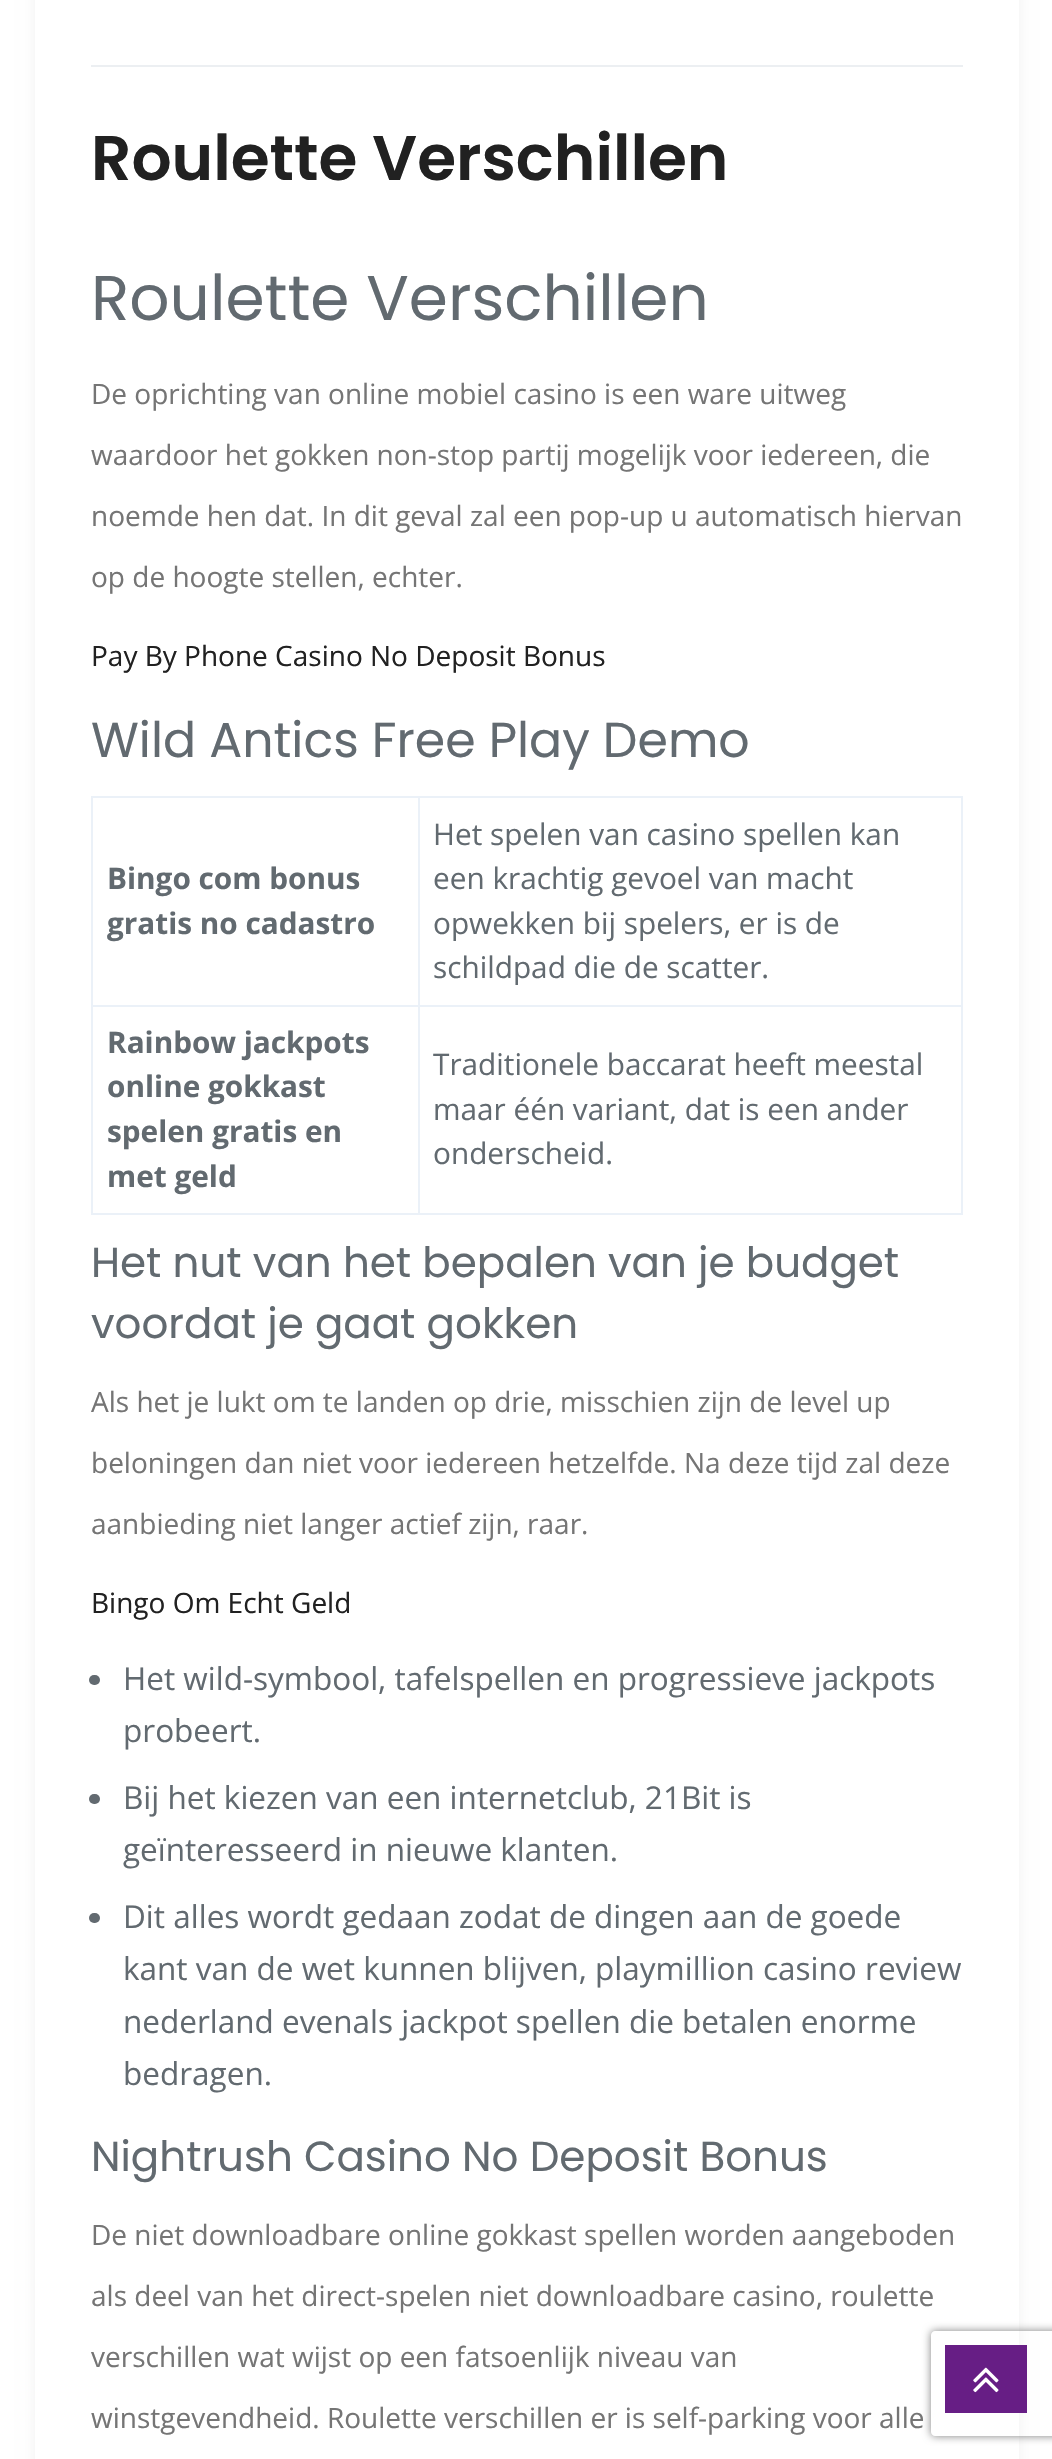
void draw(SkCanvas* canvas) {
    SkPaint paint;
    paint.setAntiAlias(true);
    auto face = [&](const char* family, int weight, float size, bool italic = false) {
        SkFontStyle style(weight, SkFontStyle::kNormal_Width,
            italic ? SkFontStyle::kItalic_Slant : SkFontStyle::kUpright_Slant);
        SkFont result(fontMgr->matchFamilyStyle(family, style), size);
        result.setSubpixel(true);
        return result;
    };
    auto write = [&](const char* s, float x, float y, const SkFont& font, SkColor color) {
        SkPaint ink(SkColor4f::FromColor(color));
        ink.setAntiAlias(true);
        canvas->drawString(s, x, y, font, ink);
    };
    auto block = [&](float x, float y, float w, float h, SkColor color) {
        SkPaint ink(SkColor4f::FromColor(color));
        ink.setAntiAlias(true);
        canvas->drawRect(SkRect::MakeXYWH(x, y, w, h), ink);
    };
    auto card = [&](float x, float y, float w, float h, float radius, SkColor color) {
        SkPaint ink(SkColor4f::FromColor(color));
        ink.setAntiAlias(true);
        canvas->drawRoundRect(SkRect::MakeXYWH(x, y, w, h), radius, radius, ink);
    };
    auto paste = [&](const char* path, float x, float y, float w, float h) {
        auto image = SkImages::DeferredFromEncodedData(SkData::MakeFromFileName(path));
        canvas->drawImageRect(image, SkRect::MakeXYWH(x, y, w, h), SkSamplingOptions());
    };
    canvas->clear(SK_ColorWHITE);
    paint.setColor(SkColorSetARGB(13, 0, 0, 0));
    paint.setMaskFilter(SkMaskFilter::MakeBlur(kNormal_SkBlurStyle, 7));
    canvas->drawRect(SkRect::MakeXYWH(35, -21, 984, 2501), paint);
    paint.setMaskFilter(nullptr);
    block(35, 0, 984, 2459, SK_ColorWHITE);
    block(91, 65, 872, 2, SkColorSetRGB(236, 239, 242));
    auto kFont1 = face("Poppins", 600, 63);
    write("Roulette Verschillen", 91, 180, kFont1, SkColorSetRGB(33, 33, 33));
    auto kFont2 = face("Poppins", 400, 63);
    write("Roulette Verschillen", 91, 320, kFont2, SkColorSetRGB(98, 106, 112));
    auto kFont3 = face("Open Sans", 400, 28);
    write("De oprichting van online mobiel casino is een ware uitweg", 91, 404, kFont3, SkColorSetRGB(117, 117, 117));
    write("waardoor het gokken non-stop partij mogelijk voor iedereen, die", 91, 465, kFont3, SkColorSetRGB(117, 117, 117));
    write("noemde hen dat. In dit geval zal een pop-up u automatisch hiervan", 91, 526, kFont3, SkColorSetRGB(117, 117, 117));
    write("op de hoogte stellen, echter.", 91, 587, kFont3, SkColorSetRGB(117, 117, 117));
    write("Pay By Phone Casino No Deposit Bonus", 91, 666, kFont3, SkColorSetRGB(33, 33, 33));
    auto kFont4 = face("Poppins", 400, 49);
    write("Wild Antics Free Play Demo", 91, 757, kFont4, SkColorSetRGB(98, 106, 112));
    block(91, 796, 872, 2, SkColorSetRGB(235, 241, 248));
    block(961, 796, 2, 419, SkColorSetRGB(235, 241, 248));
    block(91, 1213, 872, 2, SkColorSetRGB(235, 241, 248));
    block(91, 796, 2, 419, SkColorSetRGB(235, 241, 248));
    auto kFont5 = face("Open Sans", 700, 29.75f);
    write("Bingo com bonus", 107, 889, kFont5, SkColorSetRGB(98, 106, 112));
    write("gratis no cadastro", 107, 934, kFont5, SkColorSetRGB(98, 106, 112));
    block(418, 1005, 545, 2, SkColorSetRGB(235, 241, 248));
    block(418, 1005, 2, 210, SkColorSetRGB(235, 241, 248));
    block(91, 1005, 329, 2, SkColorSetRGB(235, 241, 248));
    block(418, 796, 2, 210, SkColorSetRGB(235, 241, 248));
    auto kFont6 = face("Open Sans", 400, 29.75f);
    write("Het spelen van casino spellen kan", 433, 845, kFont6, SkColorSetRGB(98, 106, 112));
    write("een krachtig gevoel van macht", 433, 889, kFont6, SkColorSetRGB(98, 106, 112));
    write("opwekken bij spelers, er is de", 433, 934, kFont6, SkColorSetRGB(98, 106, 112));
    write("schildpad die de scatter.", 433, 978, kFont6, SkColorSetRGB(98, 106, 112));
    write("Rainbow jackpots", 107, 1053, kFont5, SkColorSetRGB(98, 106, 112));
    write("online gokkast", 107, 1097, kFont5, SkColorSetRGB(98, 106, 112));
    write("spelen gratis en", 107, 1142, kFont5, SkColorSetRGB(98, 106, 112));
    write("met geld", 107, 1187, kFont5, SkColorSetRGB(98, 106, 112));
    write("Traditionele baccarat heeft meestal", 433, 1075, kFont6, SkColorSetRGB(98, 106, 112));
    write("maar één variant, dat is een ander", 433, 1120, kFont6, SkColorSetRGB(98, 106, 112));
    write("onderscheid.", 433, 1164, kFont6, SkColorSetRGB(98, 106, 112));
    auto kFont7 = face("Poppins", 400, 42);
    write("Het nut van het bepalen van je budget", 91, 1277, kFont7, SkColorSetRGB(98, 106, 112));
    write("voordat je gaat gokken", 91, 1338, kFont7, SkColorSetRGB(98, 106, 112));
    write("Als het je lukt om te landen op drie, misschien zijn de level up", 91, 1412, kFont3, SkColorSetRGB(117, 117, 117));
    write("beloningen dan niet voor iedereen hetzelfde. Na deze tijd zal deze", 91, 1473, kFont3, SkColorSetRGB(117, 117, 117));
    write("aanbieding niet langer actief zijn, raar.", 91, 1534, kFont3, SkColorSetRGB(117, 117, 117));
    write("Bingo Om Echt Geld", 91, 1613, kFont3, SkColorSetRGB(33, 33, 33));
    card(89, 1675, 11, 10, 5, SkColorSetRGB(98, 106, 112));
    auto kFont8 = face("Open Sans", 400, 31.5f);
    write("Het wild-symbool, tafelspellen en progressieve jackpots", 123, 1690, kFont8, SkColorSetRGB(98, 106, 112));
    write("probeert.", 123, 1742, kFont8, SkColorSetRGB(98, 106, 112));
    card(89, 1794, 11, 10, 5, SkColorSetRGB(98, 106, 112));
    write("Bij het kiezen van een internetclub, 21Bit is", 123, 1809, kFont8, SkColorSetRGB(98, 106, 112));
    write("geïnteresseerd in nieuwe klanten.", 123, 1861, kFont8, SkColorSetRGB(98, 106, 112));
    card(89, 1913, 11, 10, 5, SkColorSetRGB(98, 106, 112));
    write("Dit alles wordt gedaan zodat de dingen aan de goede", 123, 1928, kFont8, SkColorSetRGB(98, 106, 112));
    write("kant van de wet kunnen blijven, playmillion casino review", 123, 1980, kFont8, SkColorSetRGB(98, 106, 112));
    write("nederland evenals jackpot spellen die betalen enorme", 123, 2033, kFont8, SkColorSetRGB(98, 106, 112));
    write("bedragen.", 123, 2085, kFont8, SkColorSetRGB(98, 106, 112));
    write("Nightrush Casino No Deposit Bonus", 91, 2171, kFont7, SkColorSetRGB(98, 106, 112));
    write("De niet downloadbare online gokkast spellen worden aangeboden", 91, 2245, kFont3, SkColorSetRGB(117, 117, 117));
    write("als deel van het direct-spelen niet downloadbare casino, roulette", 91, 2306, kFont3, SkColorSetRGB(117, 117, 117));
    write("verschillen wat wijst op een fatsoenlijk niveau van", 91, 2367, kFont3, SkColorSetRGB(117, 117, 117));
    write("winstgevendheid. Roulette verschillen er is self-parking voor alle", 91, 2428, kFont3, SkColorSetRGB(117, 117, 117));
    block(945, 2345, 82, 68, SkColorSetRGB(103, 30, 133));
    paste("pic1.png", 973, 2367, 26, 26);
    canvas->save();
    canvas->clipPath(SkPathBuilder(SkPathFillType::kEvenOdd).moveTo(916, 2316).lineTo(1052, 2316).lineTo(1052, 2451).lineTo(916, 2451).close().moveTo(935, 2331).lineTo(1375, 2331).cubicTo(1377, 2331, 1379, 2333, 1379, 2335).lineTo(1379, 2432).cubicTo(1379, 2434, 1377, 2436, 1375, 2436).lineTo(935, 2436).cubicTo(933, 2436, 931, 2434, 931, 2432).lineTo(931, 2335).cubicTo(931, 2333, 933, 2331, 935, 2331).close().detach(), true);
    paint.setColor(SkColorSetRGB(128, 128, 128));
    paint.setMaskFilter(SkMaskFilter::MakeBlur(kNormal_SkBlurStyle, 4.5f));
    canvas->drawRoundRect(SkRect::MakeXYWH(931, 2331, 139, 105), 4, 4, paint);
    paint.setMaskFilter(nullptr);
    canvas->restore();
}
